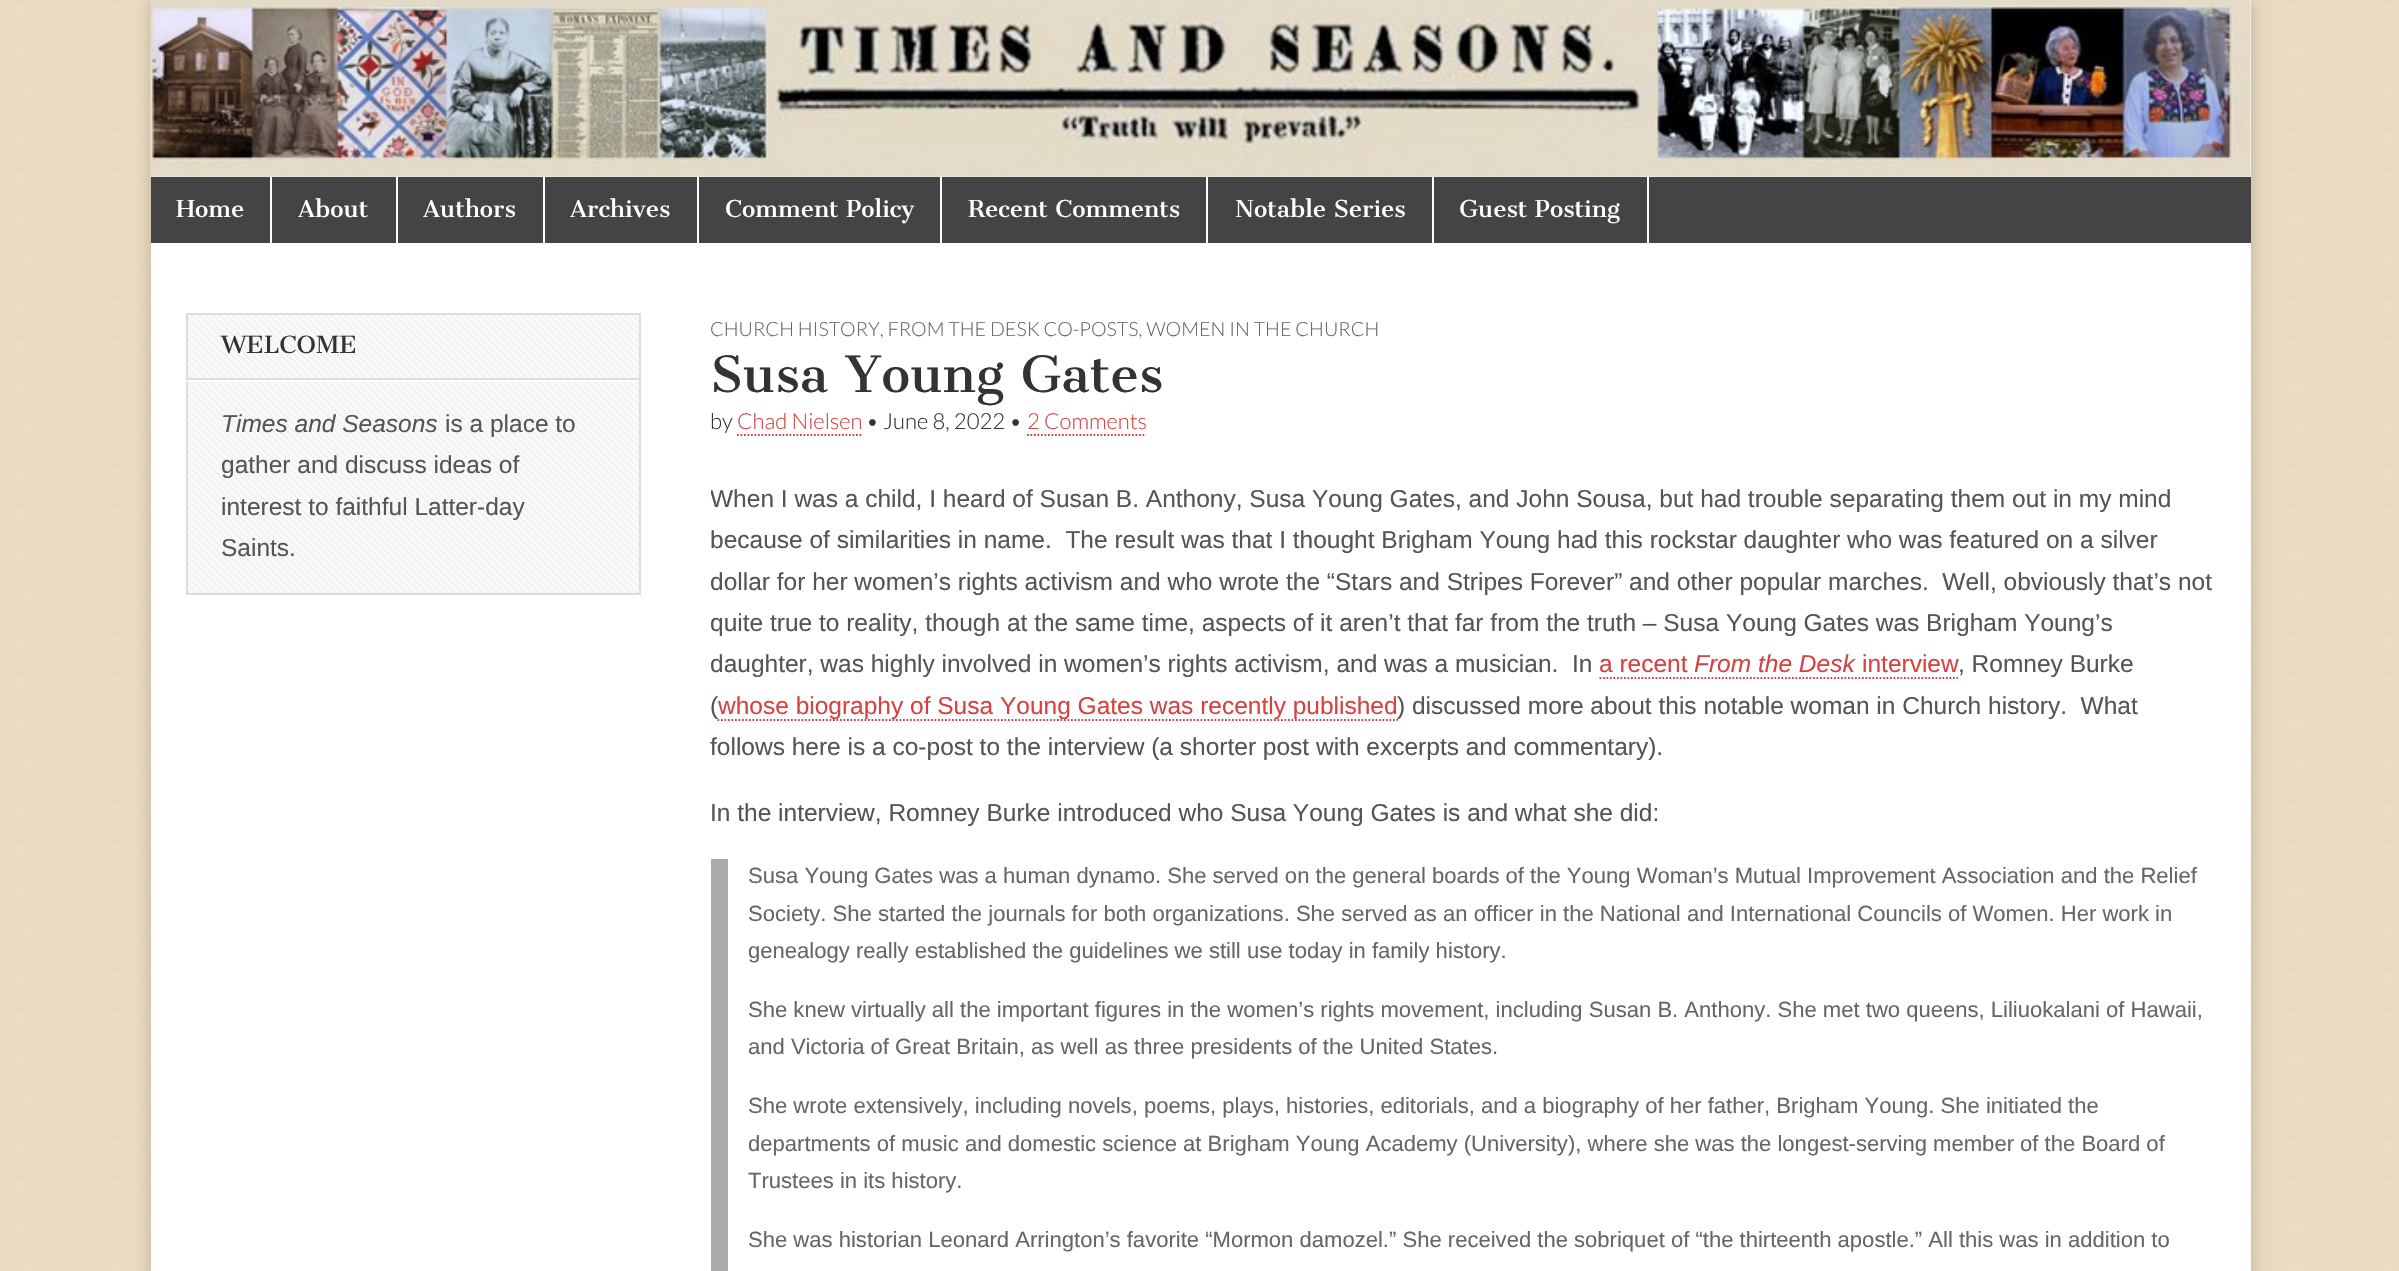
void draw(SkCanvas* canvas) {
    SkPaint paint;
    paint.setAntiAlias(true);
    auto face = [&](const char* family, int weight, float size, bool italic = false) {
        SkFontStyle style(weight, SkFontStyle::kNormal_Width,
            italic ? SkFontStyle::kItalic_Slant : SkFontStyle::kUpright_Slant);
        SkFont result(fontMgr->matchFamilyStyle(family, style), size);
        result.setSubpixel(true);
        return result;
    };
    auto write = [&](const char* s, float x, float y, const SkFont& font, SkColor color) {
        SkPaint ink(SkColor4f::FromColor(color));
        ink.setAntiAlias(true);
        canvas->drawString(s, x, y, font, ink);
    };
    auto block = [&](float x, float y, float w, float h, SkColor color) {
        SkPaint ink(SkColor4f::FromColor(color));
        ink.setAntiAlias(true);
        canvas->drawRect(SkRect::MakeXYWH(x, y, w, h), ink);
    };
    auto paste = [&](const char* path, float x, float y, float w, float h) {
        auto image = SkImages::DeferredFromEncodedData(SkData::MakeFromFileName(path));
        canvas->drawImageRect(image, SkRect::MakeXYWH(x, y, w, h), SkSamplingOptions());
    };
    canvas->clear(SK_ColorWHITE);
    paste("pic1.png", 0, 0, 2399, 1271);
    paint.setColor(SkColorSetARGB(51, 0, 0, 0));
    paint.setMaskFilter(SkMaskFilter::MakeBlur(kNormal_SkBlurStyle, 9));
    canvas->drawRect(SkRect::MakeXYWH(151, 0, 2100, 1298), paint);
    paint.setMaskFilter(nullptr);
    block(151, 0, 2100, 1271, SK_ColorWHITE);
    paste("pic2.png", 150, 0, 2101, 177);
    block(151, 177, 2100, 66, SkColorSetRGB(68, 68, 68));
    block(270, 177, 2, 66, SK_ColorWHITE);
    auto kFont1 = face("Cantata One", 400, 22.75f);
    write("Home", 176, 217, kFont1, SK_ColorWHITE);
    block(396, 177, 2, 66, SK_ColorWHITE);
    write("About", 298, 217, kFont1, SK_ColorWHITE);
    block(543, 177, 2, 66, SK_ColorWHITE);
    write("Authors", 423, 217, kFont1, SK_ColorWHITE);
    block(697, 177, 2, 66, SK_ColorWHITE);
    write("Archives", 570, 217, kFont1, SK_ColorWHITE);
    block(940, 177, 2, 66, SK_ColorWHITE);
    write("Comment Policy", 725, 217, kFont1, SK_ColorWHITE);
    block(1206, 177, 2, 66, SK_ColorWHITE);
    write("Recent Comments", 968, 217, kFont1, SK_ColorWHITE);
    block(1432, 177, 2, 66, SK_ColorWHITE);
    write("Notable Series", 1235, 217, kFont1, SK_ColorWHITE);
    block(1647, 177, 2, 66, SK_ColorWHITE);
    write("Guest Posting", 1459, 217, kFont1, SK_ColorWHITE);
    paste("pic3.png", 185, 313, 454, 282);
    paint.setStyle(SkPaint::kStroke_Style);
    paint.setStrokeWidth(2);
    paint.setColor(SkColorSetRGB(221, 221, 221));
    canvas->drawRect(SkRect::MakeXYWH(187, 314, 453, 280), paint);
    paint.setStyle(SkPaint::kFill_Style);
    paint.setColor(SK_ColorWHITE);
    canvas->drawPath(SkPathBuilder().moveTo(187, 317).lineTo(187, 382).lineTo(639, 382).lineTo(639, 317).lineTo(639, 380).lineTo(187, 380).close().detach(), paint);
    block(187, 378, 452, 2, SkColorSetRGB(221, 221, 221));
    auto kFont2 = face("Cantata One", 400, 23.25f);
    write("WELCOME", 221, 353, kFont2, SkColorSetRGB(51, 51, 51));
    auto kFont3 = face("Liberation Sans", 400, 24.5f, true);
    write("Times and Seasons", 221, 432, kFont3, SkColorSetRGB(85, 85, 85));
    auto kFont4 = face("Liberation Sans", 400, 24.5f);
    write("is a place to", 445, 432, kFont4, SkColorSetRGB(85, 85, 85));
    write("gather and discuss ideas of", 221, 473, kFont4, SkColorSetRGB(85, 85, 85));
    write("interest to faithful Latter-day", 221, 515, kFont4, SkColorSetRGB(85, 85, 85));
    write("Saints.", 221, 556, kFont4, SkColorSetRGB(85, 85, 85));
    auto kFont5 = face("Lato", 300, 19.6f);
    write("CHURCH HISTORY, FROM THE DESK CO-POSTS, WOMEN IN THE CHURCH", 710, 336, kFont5, SkColorSetRGB(102, 102, 102));
    auto kFont6 = face("Cantata One", 400, 49);
    write("Susa Young Gates", 710, 392, kFont6, SkColorSetRGB(51, 51, 51));
    auto kFont7 = face("Lato", 300, 22.05f);
    write("by", 710, 429, kFont7, SkColorSetRGB(51, 51, 51));
    write("Chad Nielsen", 737, 429, kFont7, SkColorSetRGB(214, 66, 66));
    paint.setStyle(SkPaint::kStroke_Style);
    paint.setStrokeWidth(1.8f);
    paint.setColor(SkColorSetRGB(214, 66, 66));
    paint.setPathEffect(SkDashPathEffect::Make({{1.75f, 1.75f}}, 0));
    canvas->drawPath(SkPathBuilder().moveTo(737, 435).lineTo(863, 435).detach(), paint);
    paint.setPathEffect(nullptr);
    write("• June 8, 2022 •", 866, 429, kFont7, SkColorSetRGB(51, 51, 51));
    write("2 Comments", 1027, 429, kFont7, SkColorSetRGB(214, 66, 66));
    paint.setPathEffect(SkDashPathEffect::Make({{1.75f, 1.75f}}, 0));
    canvas->drawPath(SkPathBuilder().moveTo(1027, 435).lineTo(1146, 435).detach(), paint);
    paint.setPathEffect(nullptr);
    canvas->save();
    canvas->clipRect(SkRect::MakeXYWH(711, 455, 1505, 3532));
    write("When I was a child, I heard of Susan B. Anthony, Susa Young Gates, and John Sousa, but had trouble separating them out in my mind", 710, 507, kFont4, SkColorSetRGB(85, 85, 85));
    canvas->restore();
    write("because of similarities in name.  The result was that I thought Brigham Young had this rockstar daughter who was featured on a silver", 710, 548, kFont4, SkColorSetRGB(85, 85, 85));
    canvas->save();
    canvas->clipRect(SkRect::MakeXYWH(711, 455, 1505, 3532));
    write("dollar for her women’s rights activism and who wrote the “Stars and Stripes Forever” and other popular marches.  Well, obviously that’s not", 710, 590, kFont4, SkColorSetRGB(85, 85, 85));
    write("quite true to reality, though at the same time, aspects of it aren’t that far from the truth – Susa Young Gates was Brigham Young’s", 710, 631, kFont4, SkColorSetRGB(85, 85, 85));
    write("daughter, was highly involved in women’s rights activism, and was a musician.  In", 710, 672, kFont4, SkColorSetRGB(85, 85, 85));
    canvas->restore();
    write("a recent", 1599, 672, kFont4, SkColorSetRGB(214, 66, 66));
    paint.setPathEffect(SkDashPathEffect::Make({{1.75f, 1.75f}}, 0));
    canvas->drawPath(SkPathBuilder().moveTo(1599.5f, 678).lineTo(1694, 678).detach(), paint);
    paint.setPathEffect(nullptr);
    write("From the Desk", 1694, 672, kFont3, SkColorSetRGB(214, 66, 66));
    paint.setPathEffect(SkDashPathEffect::Make({{1.75f, 1.75f}}, 0));
    canvas->drawPath(SkPathBuilder().moveTo(1694, 678).lineTo(1862, 678).detach(), paint);
    paint.setPathEffect(nullptr);
    write("interview", 1862, 672, kFont4, SkColorSetRGB(214, 66, 66));
    paint.setPathEffect(SkDashPathEffect::Make({{1.75f, 1.75f}}, 0));
    canvas->drawPath(SkPathBuilder().moveTo(1862, 678).lineTo(1958, 678).detach(), paint);
    paint.setPathEffect(nullptr);
    write(", Romney Burke", 1958, 672, kFont4, SkColorSetRGB(85, 85, 85));
    write("(", 710, 714, kFont4, SkColorSetRGB(85, 85, 85));
    paint.setPathEffect(SkDashPathEffect::Make({{1.75f, 1.75f}}, 0));
    canvas->drawPath(SkPathBuilder().moveTo(717.5f, 720).lineTo(1398, 720).detach(), paint);
    paint.setPathEffect(nullptr);
    write("whose biography of Susa Young Gates was recently published", 718, 714, kFont4, SkColorSetRGB(214, 66, 66));
    write(") discussed more about this notable woman in Church history.  What", 1397, 714, kFont4, SkColorSetRGB(85, 85, 85));
    write("follows here is a co-post to the interview (a shorter post with excerpts and commentary).", 710, 755, kFont4, SkColorSetRGB(85, 85, 85));
    write("In the interview, Romney Burke introduced who Susa Young Gates is and what she did:", 710, 821, kFont4, SkColorSetRGB(85, 85, 85));
    block(711, 859, 17, 412, SkColorSetRGB(170, 170, 170));
    auto kFont8 = face("Liberation Sans", 400, 22.05f);
    write("Susa Young Gates was a human dynamo. She served on the general boards of the Young Woman’s Mutual Improvement Association and the Relief", 748, 883, kFont8, SkColorSetRGB(102, 102, 102));
    write("Society. She started the journals for both organizations. She served as an officer in the National and International Councils of Women. Her work in", 748, 921, kFont8, SkColorSetRGB(102, 102, 102));
    write("genealogy really established the guidelines we still use today in family history.", 748, 958, kFont8, SkColorSetRGB(102, 102, 102));
    write("She knew virtually all the important figures in the women’s rights movement, including Susan B. Anthony. She met two queens, Liliuokalani of Hawaii,", 748, 1017, kFont8, SkColorSetRGB(102, 102, 102));
    write("and Victoria of Great Britain, as well as three presidents of the United States.", 748, 1054, kFont8, SkColorSetRGB(102, 102, 102));
    write("She wrote extensively, including novels, poems, plays, histories, editorials, and a biography of her father, Brigham Young. She initiated the", 748, 1113, kFont8, SkColorSetRGB(102, 102, 102));
    write("departments of music and domestic science at Brigham Young Academy (University), where she was the longest-serving member of the Board of", 748, 1151, kFont8, SkColorSetRGB(102, 102, 102));
    write("Trustees in its history.", 748, 1188, kFont8, SkColorSetRGB(102, 102, 102));
    write("She was historian Leonard Arrington’s favorite “Mormon damozel.” She received the sobriquet of “the thirteenth apostle.” All this was in addition to", 748, 1247, kFont8, SkColorSetRGB(102, 102, 102));
}
